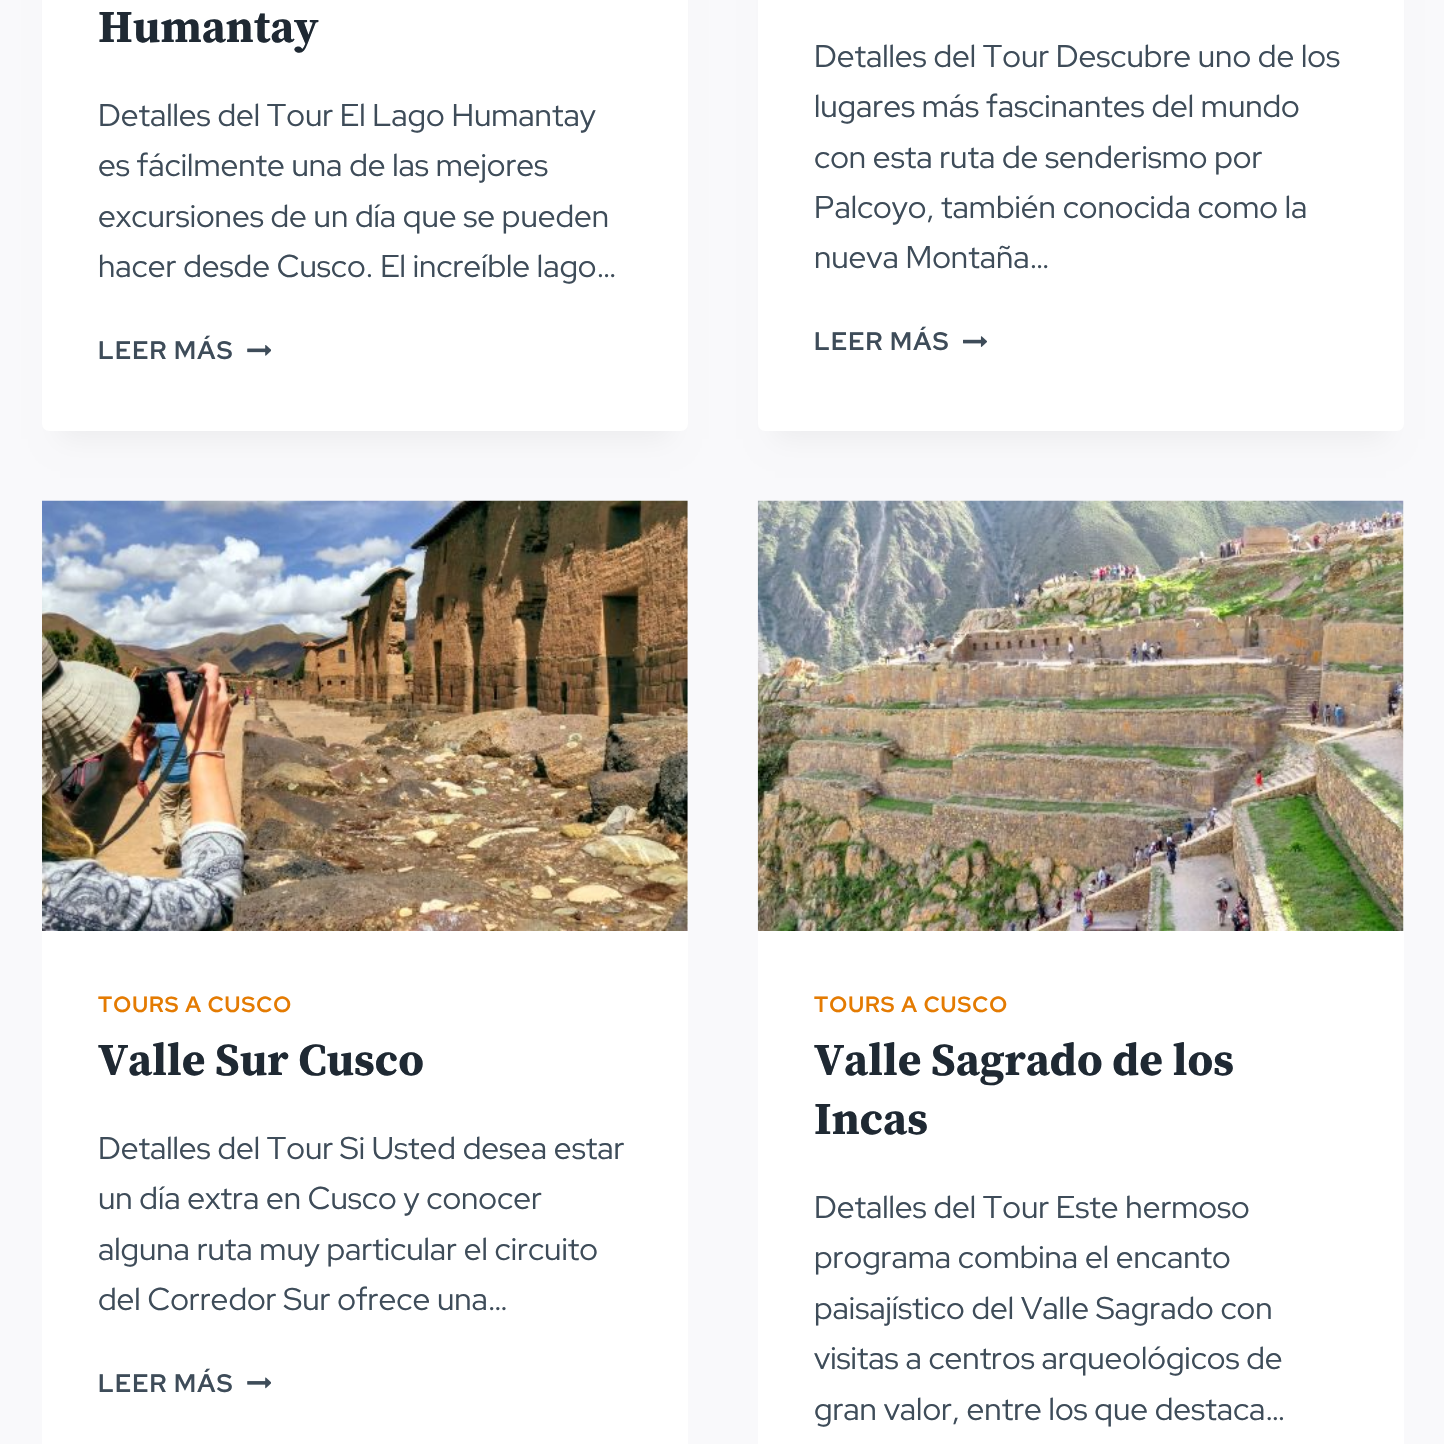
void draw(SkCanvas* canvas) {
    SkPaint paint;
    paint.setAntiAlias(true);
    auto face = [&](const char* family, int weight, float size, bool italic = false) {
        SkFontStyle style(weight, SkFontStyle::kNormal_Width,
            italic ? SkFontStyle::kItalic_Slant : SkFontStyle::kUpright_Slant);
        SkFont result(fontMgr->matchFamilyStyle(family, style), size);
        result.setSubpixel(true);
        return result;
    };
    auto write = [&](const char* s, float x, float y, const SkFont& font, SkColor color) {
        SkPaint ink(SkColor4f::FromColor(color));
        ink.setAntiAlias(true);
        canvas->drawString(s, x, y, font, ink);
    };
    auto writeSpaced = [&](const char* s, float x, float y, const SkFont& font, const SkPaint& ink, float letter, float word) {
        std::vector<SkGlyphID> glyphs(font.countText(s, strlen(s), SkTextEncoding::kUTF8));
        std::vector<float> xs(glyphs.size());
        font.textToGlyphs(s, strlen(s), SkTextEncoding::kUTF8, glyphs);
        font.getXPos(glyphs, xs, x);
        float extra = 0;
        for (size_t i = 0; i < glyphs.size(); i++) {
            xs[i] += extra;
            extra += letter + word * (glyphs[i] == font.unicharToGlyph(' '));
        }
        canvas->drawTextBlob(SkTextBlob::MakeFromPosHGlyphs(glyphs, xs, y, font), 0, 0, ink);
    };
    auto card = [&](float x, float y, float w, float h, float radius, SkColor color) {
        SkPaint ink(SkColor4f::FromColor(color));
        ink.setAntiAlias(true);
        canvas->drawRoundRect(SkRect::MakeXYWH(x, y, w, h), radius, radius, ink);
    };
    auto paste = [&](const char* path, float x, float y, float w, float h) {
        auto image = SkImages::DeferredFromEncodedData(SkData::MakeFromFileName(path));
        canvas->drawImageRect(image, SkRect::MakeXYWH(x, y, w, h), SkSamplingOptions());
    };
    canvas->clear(SkColorSetRGB(249, 249, 251));
    paint.setColor(SkColorSetARGB(13, 0, 0, 0));
    paint.setMaskFilter(SkMaskFilter::MakeBlur(kNormal_SkBlurStyle, 13));
    canvas->drawRect(SkRect::MakeXYWH(60, -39, 610, 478), paint);
    paint.setMaskFilter(nullptr);
    card(42, -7, 646, 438, 7, SK_ColorWHITE);
    auto kFont1 = face("Source Serif Pro", 700, 45.5f);
    write("Humantay", 98, 42, kFont1, SkColorSetRGB(31, 41, 51));
    auto kFont2 = face("Red Hat Display", 400, 31.5f);
    write("Detalles del Tour El Lago Humantay", 98, 126, kFont2, SkColorSetRGB(62, 76, 89));
    write("es fácilmente una de las mejores", 98, 176, kFont2, SkColorSetRGB(62, 76, 89));
    write("excursiones de un día que se pueden", 98, 227, kFont2, SkColorSetRGB(62, 76, 89));
    write("hacer desde Cusco. El increíble lago…", 98, 277, kFont2, SkColorSetRGB(62, 76, 89));
    auto kFont3 = face("Red Hat Display", 700, 25.25f);
    paint.setColor(SkColorSetRGB(62, 76, 89));
    writeSpaced("LEER MÁS", 98, 359, kFont3, paint, 1.25f, 0);
    paste("pic1.png", 247, 345, 24, 11);
    paint.setColor(SkColorSetARGB(13, 0, 0, 0));
    paint.setMaskFilter(SkMaskFilter::MakeBlur(kNormal_SkBlurStyle, 13));
    canvas->drawRect(SkRect::MakeXYWH(775, -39, 611, 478), paint);
    paint.setMaskFilter(nullptr);
    card(758, -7, 646, 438, 7, SK_ColorWHITE);
    write("Detalles del Tour Descubre uno de los", 814, 67, kFont2, SkColorSetRGB(62, 76, 89));
    write("lugares más fascinantes del mundo", 814, 117, kFont2, SkColorSetRGB(62, 76, 89));
    write("con esta ruta de senderismo por", 814, 168, kFont2, SkColorSetRGB(62, 76, 89));
    write("Palcoyo, también conocida como la", 814, 218, kFont2, SkColorSetRGB(62, 76, 89));
    write("nueva Montaña…", 814, 268, kFont2, SkColorSetRGB(62, 76, 89));
    paint.setColor(SkColorSetRGB(62, 76, 89));
    writeSpaced("LEER MÁS", 814, 350, kFont3, paint, 1.25f, 0);
    paste("pic2.png", 963, 336, 24, 11);
    card(42, 501, 646, 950, 7, SK_ColorWHITE);
    paste("pic3.png", 42, 500, 646, 431);
    auto kFont4 = face("Red Hat Display", 700, 22);
    paint.setColor(SkColorSetRGB(228, 123, 2));
    writeSpaced("TOURS A CUSCO", 98, 1012, kFont4, paint, 1.1f, 0);
    write("Valle Sur Cusco", 98, 1075, kFont1, SkColorSetRGB(31, 41, 51));
    write("Detalles del Tour Si Usted desea estar", 98, 1159, kFont2, SkColorSetRGB(62, 76, 89));
    write("un día extra en Cusco y conocer", 98, 1209, kFont2, SkColorSetRGB(62, 76, 89));
    write("alguna ruta muy particular el circuito", 98, 1260, kFont2, SkColorSetRGB(62, 76, 89));
    write("del Corredor Sur ofrece una…", 98, 1310, kFont2, SkColorSetRGB(62, 76, 89));
    paint.setColor(SkColorSetRGB(62, 76, 89));
    writeSpaced("LEER MÁS", 98, 1392, kFont3, paint, 1.25f, 0);
    paste("pic4.png", 247, 1377, 24, 12);
    card(758, 501, 646, 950, 7, SK_ColorWHITE);
    paste("pic5.png", 757, 500, 647, 431);
    paint.setColor(SkColorSetRGB(228, 123, 2));
    writeSpaced("TOURS A CUSCO", 814, 1012, kFont4, paint, 1.1f, 0);
    write("Valle Sagrado de los", 814, 1075, kFont1, SkColorSetRGB(31, 41, 51));
    write("Incas", 814, 1134, kFont1, SkColorSetRGB(31, 41, 51));
    write("Detalles del Tour Este hermoso", 814, 1218, kFont2, SkColorSetRGB(62, 76, 89));
    write("programa combina el encanto", 814, 1268, kFont2, SkColorSetRGB(62, 76, 89));
    write("paisajístico del Valle Sagrado con", 814, 1319, kFont2, SkColorSetRGB(62, 76, 89));
    write("visitas a centros arqueológicos de", 814, 1369, kFont2, SkColorSetRGB(62, 76, 89));
    write("gran valor, entre los que destaca…", 814, 1420, kFont2, SkColorSetRGB(62, 76, 89));
}
